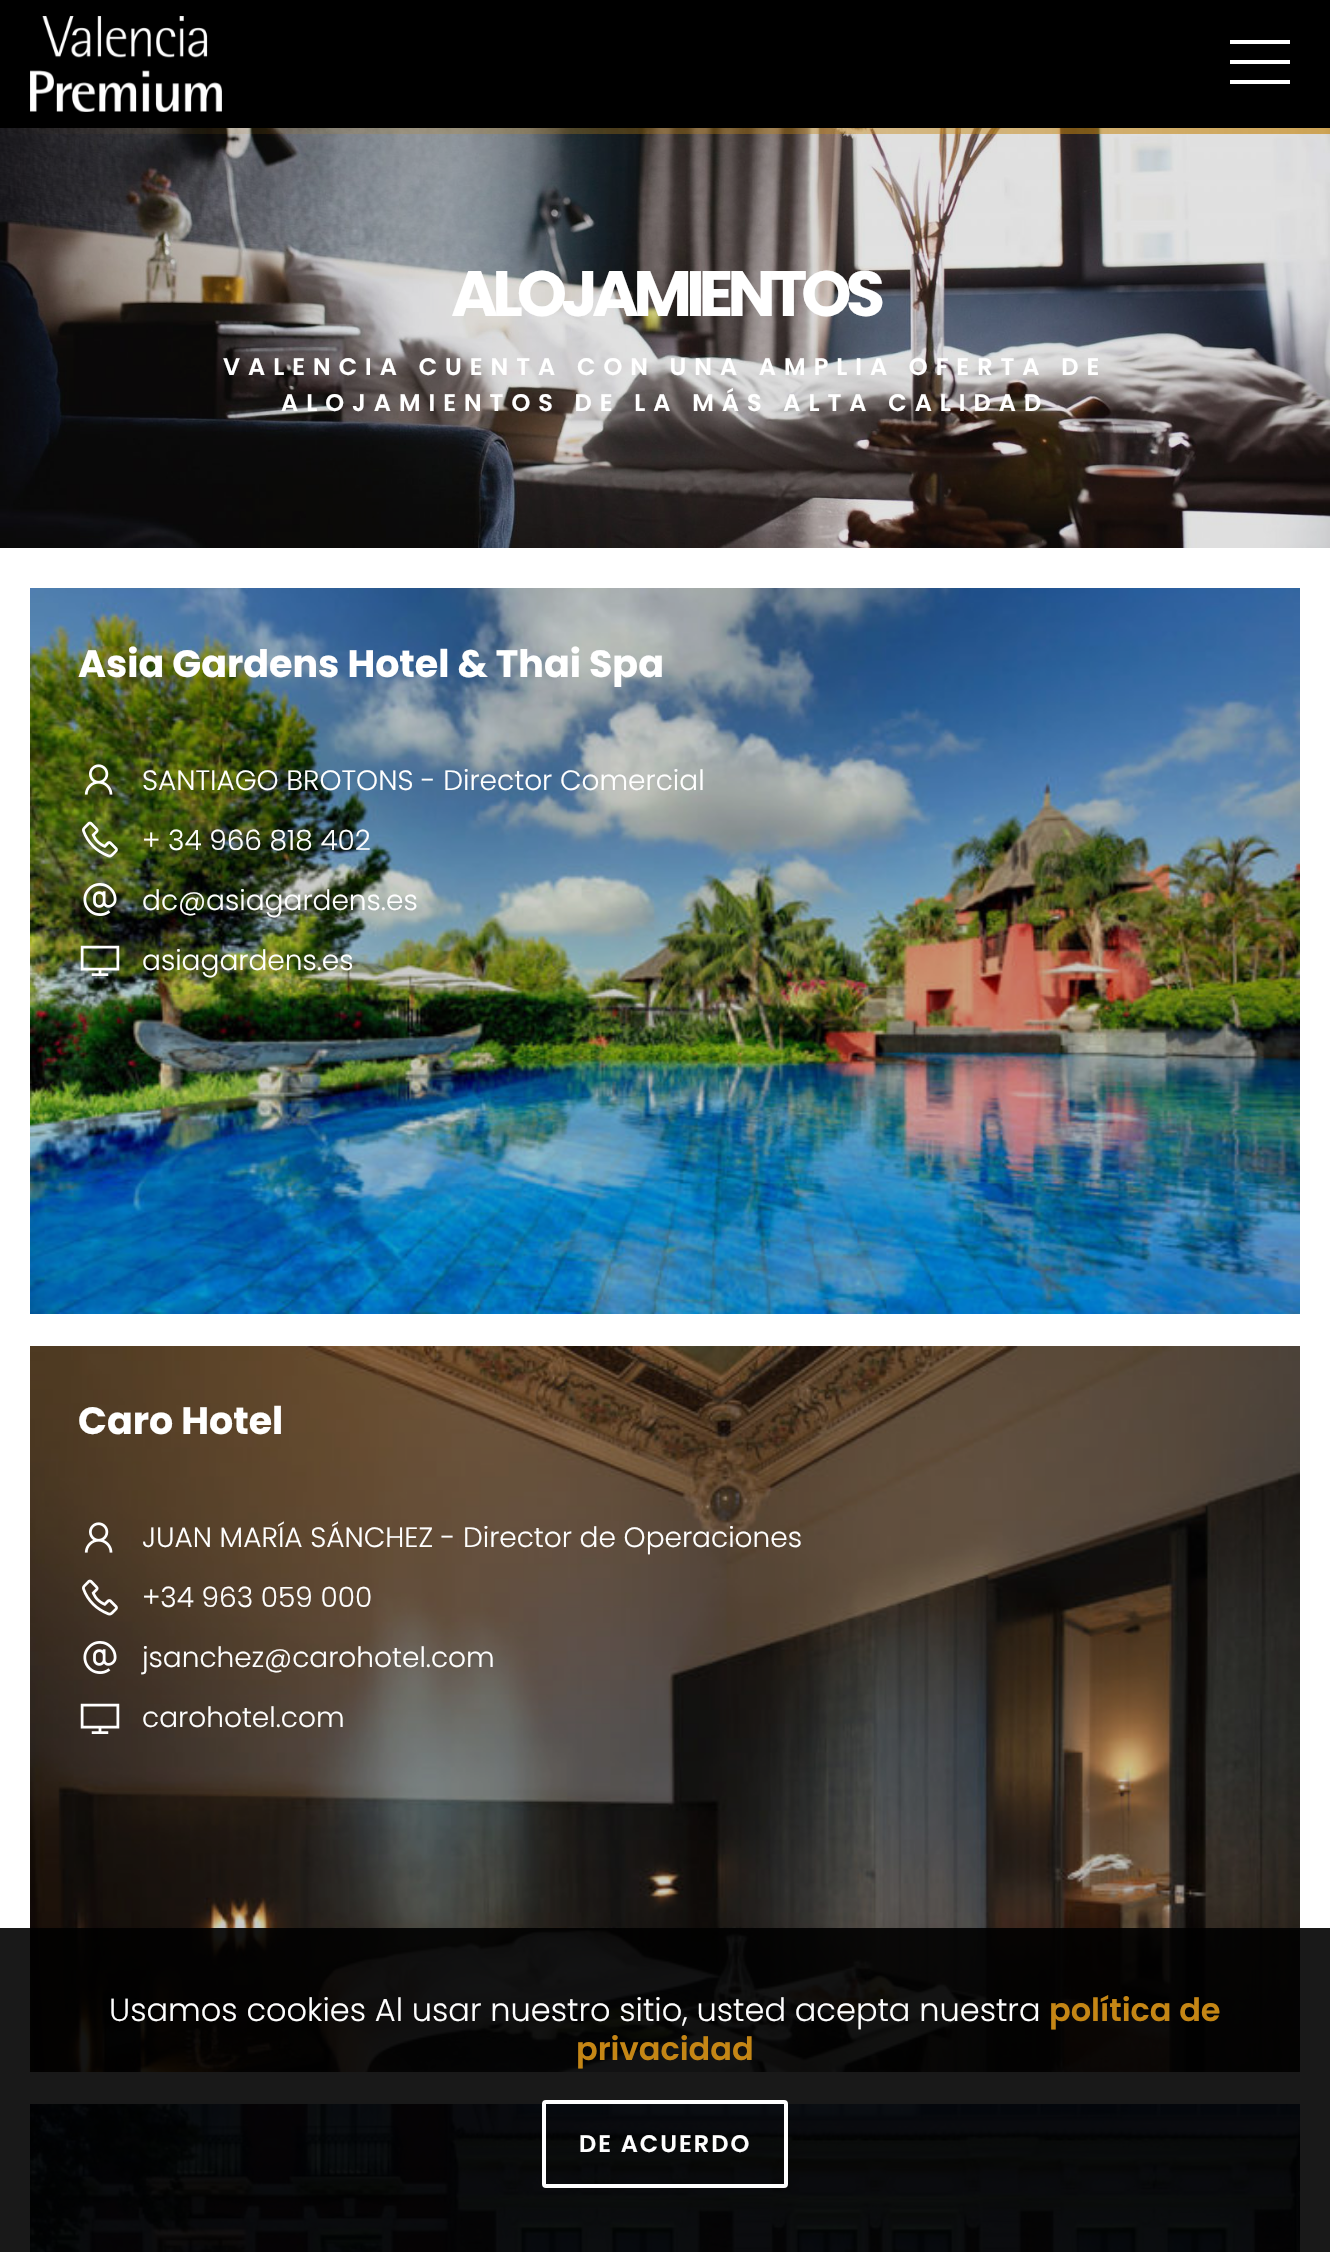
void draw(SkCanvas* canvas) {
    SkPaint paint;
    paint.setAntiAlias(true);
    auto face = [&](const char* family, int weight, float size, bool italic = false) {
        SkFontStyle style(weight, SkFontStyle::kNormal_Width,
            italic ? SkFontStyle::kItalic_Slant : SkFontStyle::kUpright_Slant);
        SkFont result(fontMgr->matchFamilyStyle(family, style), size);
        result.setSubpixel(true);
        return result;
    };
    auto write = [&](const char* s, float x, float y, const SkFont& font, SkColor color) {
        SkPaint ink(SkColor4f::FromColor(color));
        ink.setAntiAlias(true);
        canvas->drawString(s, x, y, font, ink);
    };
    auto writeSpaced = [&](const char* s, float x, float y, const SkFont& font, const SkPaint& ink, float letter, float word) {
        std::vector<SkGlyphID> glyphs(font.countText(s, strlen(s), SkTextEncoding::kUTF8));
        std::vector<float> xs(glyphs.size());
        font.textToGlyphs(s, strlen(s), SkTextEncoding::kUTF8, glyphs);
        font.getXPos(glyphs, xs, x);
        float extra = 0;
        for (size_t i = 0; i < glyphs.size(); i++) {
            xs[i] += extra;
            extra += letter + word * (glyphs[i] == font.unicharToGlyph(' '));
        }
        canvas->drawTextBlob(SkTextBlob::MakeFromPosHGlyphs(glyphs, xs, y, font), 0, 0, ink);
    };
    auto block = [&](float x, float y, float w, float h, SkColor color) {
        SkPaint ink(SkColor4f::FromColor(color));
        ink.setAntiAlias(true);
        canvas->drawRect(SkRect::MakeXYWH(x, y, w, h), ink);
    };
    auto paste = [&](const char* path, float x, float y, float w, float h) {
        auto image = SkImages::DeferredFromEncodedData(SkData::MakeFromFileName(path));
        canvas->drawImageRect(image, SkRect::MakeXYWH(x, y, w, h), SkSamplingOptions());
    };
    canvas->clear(SK_ColorWHITE);
    block(0, 0, 1330, 128, SK_ColorBLACK);
    paste("pic1.png", 30, 16, 192, 96);
    paint.setColor(SK_ColorWHITE);
    canvas->drawPath(SkPathBuilder().moveTo(1230, 40).lineTo(1290, 40).lineTo(1290, 44).lineTo(1230, 44).close().moveTo(1230, 60).lineTo(1290, 60).lineTo(1290, 64).lineTo(1230, 64).close().moveTo(1230, 80).lineTo(1290, 80).lineTo(1290, 84).lineTo(1230, 84).close().detach(), paint);
    paste("pic2.png", 0, 128, 1330, 420);
    auto kFont1 = face("Poppins", 700, 64);
    writeSpaced("ALOJAMIENTOS", 451, 316, kFont1, paint, -6, 0);
    auto kFont2 = face("Poppins", 600, 24);
    writeSpaced("VALENCIA CUENTA CON UNA AMPLIA OFERTA DE", 223, 375, kFont2, paint, 8, 0);
    writeSpaced("ALOJAMIENTOS DE LA MÁS ALTA CALIDAD", 281, 411, kFont2, paint, 8, 0);
    paste("pic3.png", 30, 588, 1270, 726);
    auto kFont3 = face("Poppins", 700, 38);
    write("Asia Gardens Hotel & Thai Spa", 78, 677, kFont3, SK_ColorWHITE);
    paste("pic4.png", 84, 764, 29, 31);
    auto kFont4 = face("Poppins", 300, 28);
    write("SANTIAGO BROTONS - Director Comercial", 142, 790, kFont4, SK_ColorWHITE);
    paste("pic5.png", 82, 821, 36, 37);
    write("+ 34 966 818 402", 142, 850, kFont4, SK_ColorWHITE);
    paste("pic6.png", 83, 883, 34, 33);
    write("dc@asiagardens.es", 142, 910, kFont4, SK_ColorWHITE);
    paste("pic7.png", 80, 945, 40, 31);
    write("asiagardens.es", 142, 970, kFont4, SK_ColorWHITE);
    paste("pic8.png", 30, 1346, 1270, 726);
    write("Caro Hotel", 78, 1434, kFont3, SK_ColorWHITE);
    paste("pic9.png", 84, 1522, 29, 31);
    write("JUAN MARÍA SÁNCHEZ - Director de Operaciones", 142, 1547, kFont4, SK_ColorWHITE);
    paste("pic10.png", 82, 1579, 36, 37);
    write("+34 963 059 000", 142, 1607, kFont4, SK_ColorWHITE);
    paste("pic11.png", 83, 1641, 34, 33);
    write("jsanchez@carohotel.com", 142, 1667, kFont4, SK_ColorWHITE);
    paste("pic12.png", 80, 1703, 40, 31);
    write("carohotel.com", 142, 1727, kFont4, SK_ColorWHITE);
    paste("pic13.png", 30, 2104, 1270, 148);
    block(0, 1928, 1330, 324, SkColorSetARGB(230, 0, 0, 0));
    auto kFont5 = face("Poppins", 300, 32);
    write("Usamos cookies Al usar nuestro sitio, usted acepta nuestra", 109, 2021, kFont5, SK_ColorWHITE);
    auto kFont6 = face("Poppins", 600, 32);
    write("política de", 1049, 2021, kFont6, SkColorSetRGB(197, 134, 21));
    write("privacidad", 576, 2060, kFont6, SkColorSetRGB(197, 134, 21));
    paint.setStyle(SkPaint::kStroke_Style);
    paint.setStrokeWidth(4);
    canvas->drawRoundRect(SkRect::MakeXYWH(544, 2102, 242, 84), 2, 2, paint);
    paint.setStyle(SkPaint::kFill_Style);
    writeSpaced("DE ACUERDO", 579, 2152, kFont2, paint, 2, 0);
}
